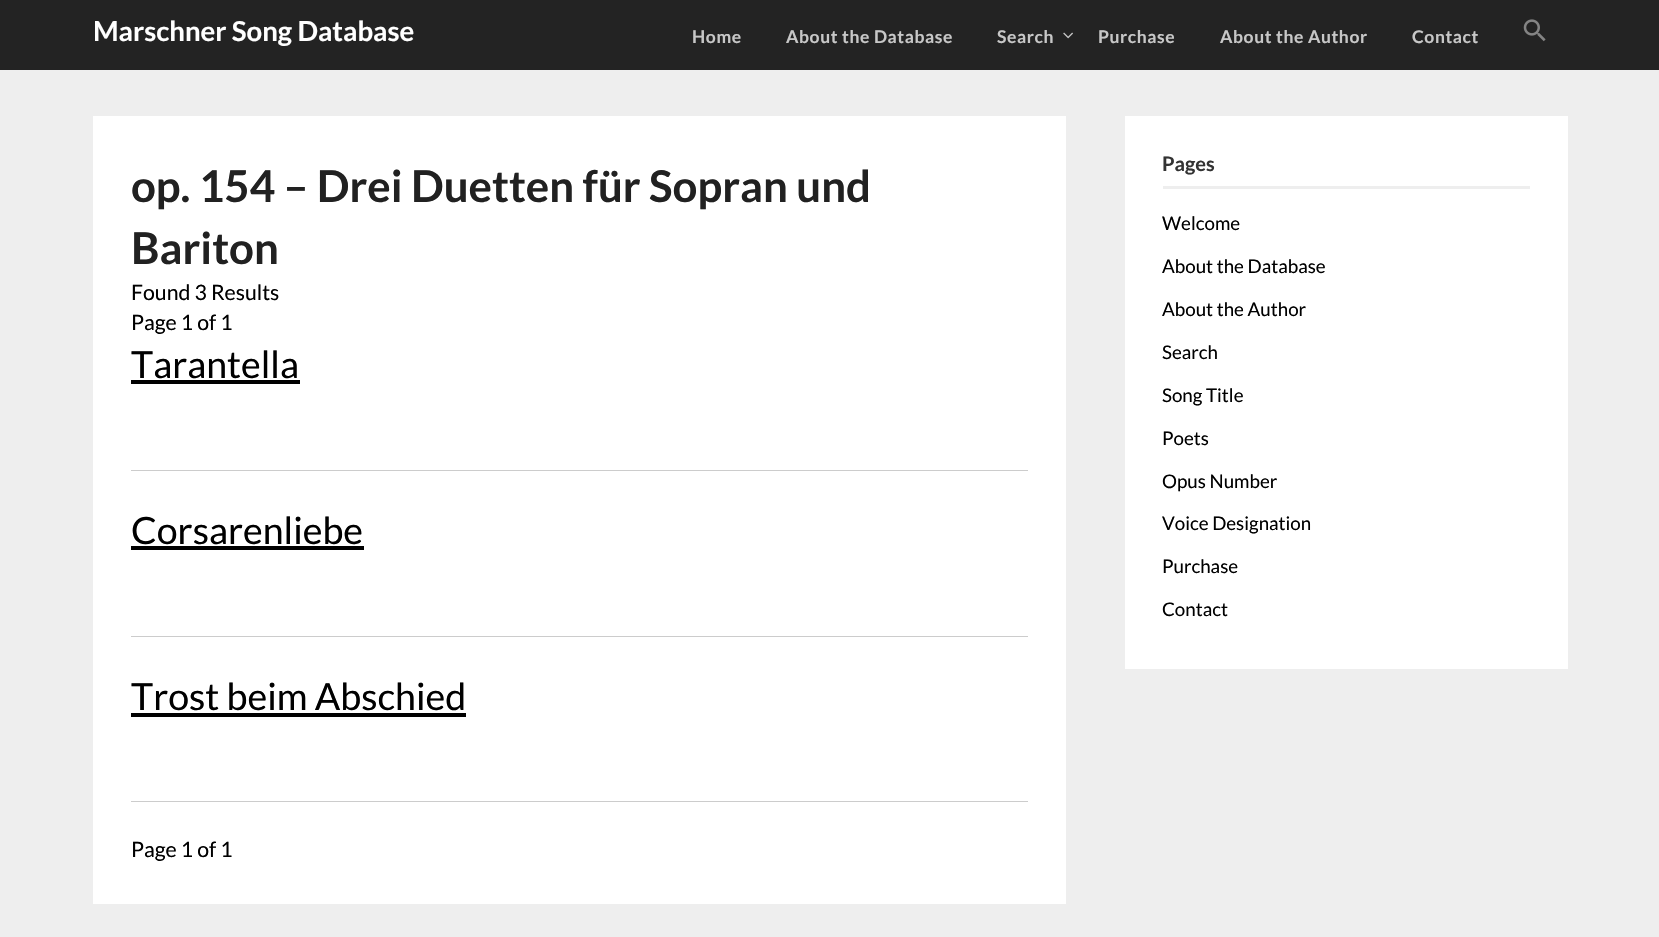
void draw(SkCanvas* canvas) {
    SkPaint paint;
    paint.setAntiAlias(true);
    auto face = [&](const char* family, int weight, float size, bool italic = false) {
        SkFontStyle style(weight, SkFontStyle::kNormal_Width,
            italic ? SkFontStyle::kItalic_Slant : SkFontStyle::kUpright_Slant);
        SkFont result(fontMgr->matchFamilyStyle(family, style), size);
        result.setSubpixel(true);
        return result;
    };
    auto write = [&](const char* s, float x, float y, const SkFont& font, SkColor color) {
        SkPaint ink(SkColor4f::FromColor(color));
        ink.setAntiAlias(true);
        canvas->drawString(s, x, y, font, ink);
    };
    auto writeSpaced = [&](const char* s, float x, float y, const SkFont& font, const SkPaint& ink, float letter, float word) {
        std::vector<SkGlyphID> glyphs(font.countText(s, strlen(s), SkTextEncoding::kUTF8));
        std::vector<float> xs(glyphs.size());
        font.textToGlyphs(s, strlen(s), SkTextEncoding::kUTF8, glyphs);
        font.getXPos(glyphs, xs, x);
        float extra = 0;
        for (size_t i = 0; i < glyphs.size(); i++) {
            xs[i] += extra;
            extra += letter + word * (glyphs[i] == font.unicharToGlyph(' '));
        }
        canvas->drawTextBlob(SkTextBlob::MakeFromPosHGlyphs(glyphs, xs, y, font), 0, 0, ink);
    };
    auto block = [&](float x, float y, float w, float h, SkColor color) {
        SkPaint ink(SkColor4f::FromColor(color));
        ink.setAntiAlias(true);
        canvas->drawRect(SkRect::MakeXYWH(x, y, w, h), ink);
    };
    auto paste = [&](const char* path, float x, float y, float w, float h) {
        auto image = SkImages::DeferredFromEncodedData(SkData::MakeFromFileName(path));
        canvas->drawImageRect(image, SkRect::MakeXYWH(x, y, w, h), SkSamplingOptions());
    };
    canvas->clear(SkColorSetRGB(238, 238, 238));
    block(0, 0, 1659, 70, SkColorSetRGB(35, 35, 35));
    auto kFont1 = face("Lato", 700, 27.5f);
    write("Marschner Song Database", 93, 41, kFont1, SK_ColorWHITE);
    auto kFont2 = face("Lato", 700, 17.5f);
    paint.setColor(SkColorSetRGB(199, 199, 199));
    writeSpaced("Home", 692, 43, kFont2, paint, 0.6f, 0);
    writeSpaced("About the Database", 786, 43, kFont2, paint, 0.6f, 0);
    writeSpaced("Search", 997, 43, kFont2, paint, 0.6f, 0);
    paste("pic1.png", 1063, 32, 10, 7);
    writeSpaced("Purchase", 1098, 43, kFont2, paint, 0.6f, 0);
    writeSpaced("About the Author", 1220, 43, kFont2, paint, 0.6f, 0);
    writeSpaced("Contact", 1412, 43, kFont2, paint, 0.6f, 0);
    paste("pic2.png", 1523, 19, 23, 23);
    block(93, 116, 973, 788, SK_ColorWHITE);
    auto kFont3 = face("Lato", 700, 43.75f);
    write("op. 154 – Drei Duetten für Sopran und", 131, 202, kFont3, SkColorSetRGB(33, 33, 33));
    write("Bariton", 131, 264, kFont3, SkColorSetRGB(33, 33, 33));
    auto kFont4 = face("Lato", 400, 21.25f);
    write("Found 3 Results", 131, 300, kFont4, SK_ColorBLACK);
    write("Page 1 of 1", 131, 330, kFont4, SK_ColorBLACK);
    auto kFont5 = face("Lato", 400, 37.5f);
    write("Tarantella", 131, 378, kFont5, SK_ColorBLACK);
    block(131, 380, 169, 4, SK_ColorBLACK);
    block(131, 470, 897, 1, SkColorSetRGB(204, 204, 204));
    write("Corsarenliebe", 131, 544, kFont5, SK_ColorBLACK);
    block(131, 546, 233, 4, SK_ColorBLACK);
    block(131, 636, 897, 1, SkColorSetRGB(204, 204, 204));
    write("Trost beim Abschied", 131, 710, kFont5, SK_ColorBLACK);
    block(131, 713, 335, 4, SK_ColorBLACK);
    block(131, 801, 897, 1, SkColorSetRGB(204, 204, 204));
    write("Page 1 of 1", 131, 857, kFont4, SK_ColorBLACK);
    block(1125, 116, 443, 553, SK_ColorWHITE);
    block(1163, 186, 367, 3, SkColorSetRGB(238, 238, 238));
    auto kFont6 = face("Lato", 700, 20);
    write("Pages", 1162, 171, kFont6, SkColorSetRGB(51, 51, 51));
    auto kFont7 = face("Lato", 400, 18.75f);
    write("Welcome", 1162, 230, kFont7, SK_ColorBLACK);
    write("About the Database", 1162, 273, kFont7, SK_ColorBLACK);
    write("About the Author", 1162, 316, kFont7, SK_ColorBLACK);
    write("Search", 1162, 359, kFont7, SK_ColorBLACK);
    write("Song Title", 1162, 402, kFont7, SK_ColorBLACK);
    write("Poets", 1162, 445, kFont7, SK_ColorBLACK);
    write("Opus Number", 1162, 488, kFont7, SK_ColorBLACK);
    write("Voice Designation", 1162, 530, kFont7, SK_ColorBLACK);
    write("Purchase", 1162, 573, kFont7, SK_ColorBLACK);
    write("Contact", 1162, 616, kFont7, SK_ColorBLACK);
}
